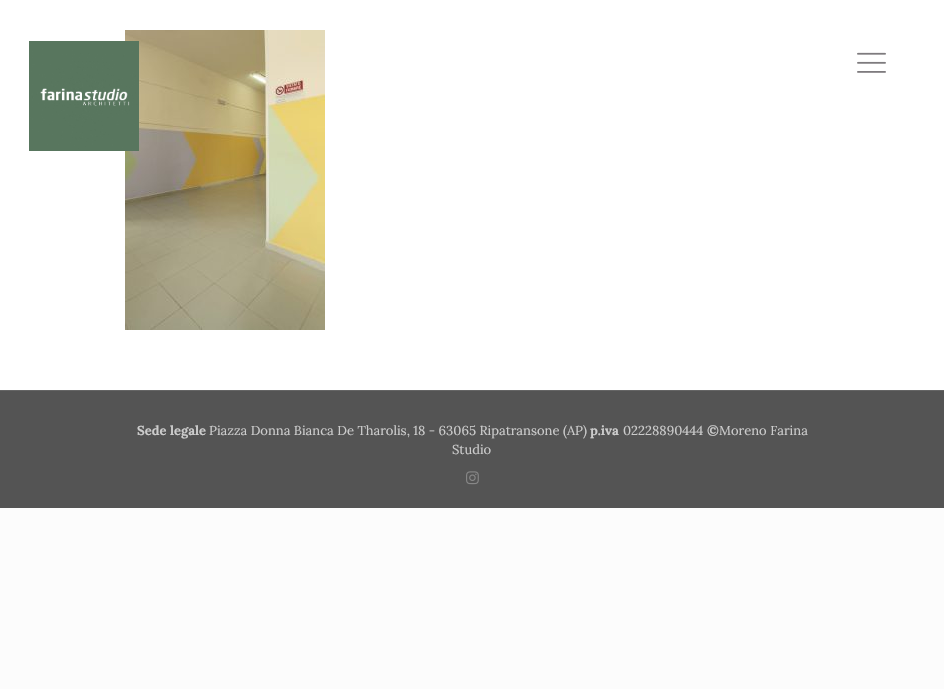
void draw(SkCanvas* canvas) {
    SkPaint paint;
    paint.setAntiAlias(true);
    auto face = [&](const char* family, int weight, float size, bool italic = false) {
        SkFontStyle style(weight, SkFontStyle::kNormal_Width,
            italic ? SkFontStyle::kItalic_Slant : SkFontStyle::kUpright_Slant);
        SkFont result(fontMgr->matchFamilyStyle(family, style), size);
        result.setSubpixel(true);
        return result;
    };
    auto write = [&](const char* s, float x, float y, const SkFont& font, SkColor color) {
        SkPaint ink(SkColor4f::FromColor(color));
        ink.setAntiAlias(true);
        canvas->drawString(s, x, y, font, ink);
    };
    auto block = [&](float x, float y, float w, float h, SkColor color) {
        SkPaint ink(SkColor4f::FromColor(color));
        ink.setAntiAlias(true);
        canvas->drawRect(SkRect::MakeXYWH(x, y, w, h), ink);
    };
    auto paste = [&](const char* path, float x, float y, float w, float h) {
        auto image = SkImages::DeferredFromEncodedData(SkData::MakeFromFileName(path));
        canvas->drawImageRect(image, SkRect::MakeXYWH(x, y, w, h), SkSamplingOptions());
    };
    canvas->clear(SkColorSetRGB(252, 252, 252));
    block(0, 0, 944, 390, SK_ColorWHITE);
    paste("pic1.png", 125, 30, 200, 300);
    paste("pic2.png", 29, 41, 110, 110);
    paste("pic3.png", 857, 52, 29, 21);
    block(0, 391, 944, 117, SkColorSetRGB(84, 84, 84));
    block(0, 390, 944, 1, SkColorSetRGB(101, 101, 101));
    auto kFont1 = face("Lora", 700, 13);
    write("Sede legale", 137, 435, kFont1, SkColorSetRGB(204, 204, 204));
    auto kFont2 = face("Lora", 400, 13);
    write("Piazza Donna Bianca De Tharolis, 18 - 63065 Ripatransone (AP)", 209, 435, kFont2, SkColorSetRGB(204, 204, 204));
    write("p.iva", 590, 435, kFont1, SkColorSetRGB(204, 204, 204));
    write("02228890444", 623, 435, kFont2, SkColorSetRGB(204, 204, 204));
    write("©", 707, 435, kFont1, SkColorSetRGB(204, 204, 204));
    write("Moreno Farina", 719, 435, kFont2, SkColorSetRGB(204, 204, 204));
    write("Studio", 452, 454, kFont2, SkColorSetRGB(204, 204, 204));
    paste("pic4.png", 466, 471, 13, 14);
}
